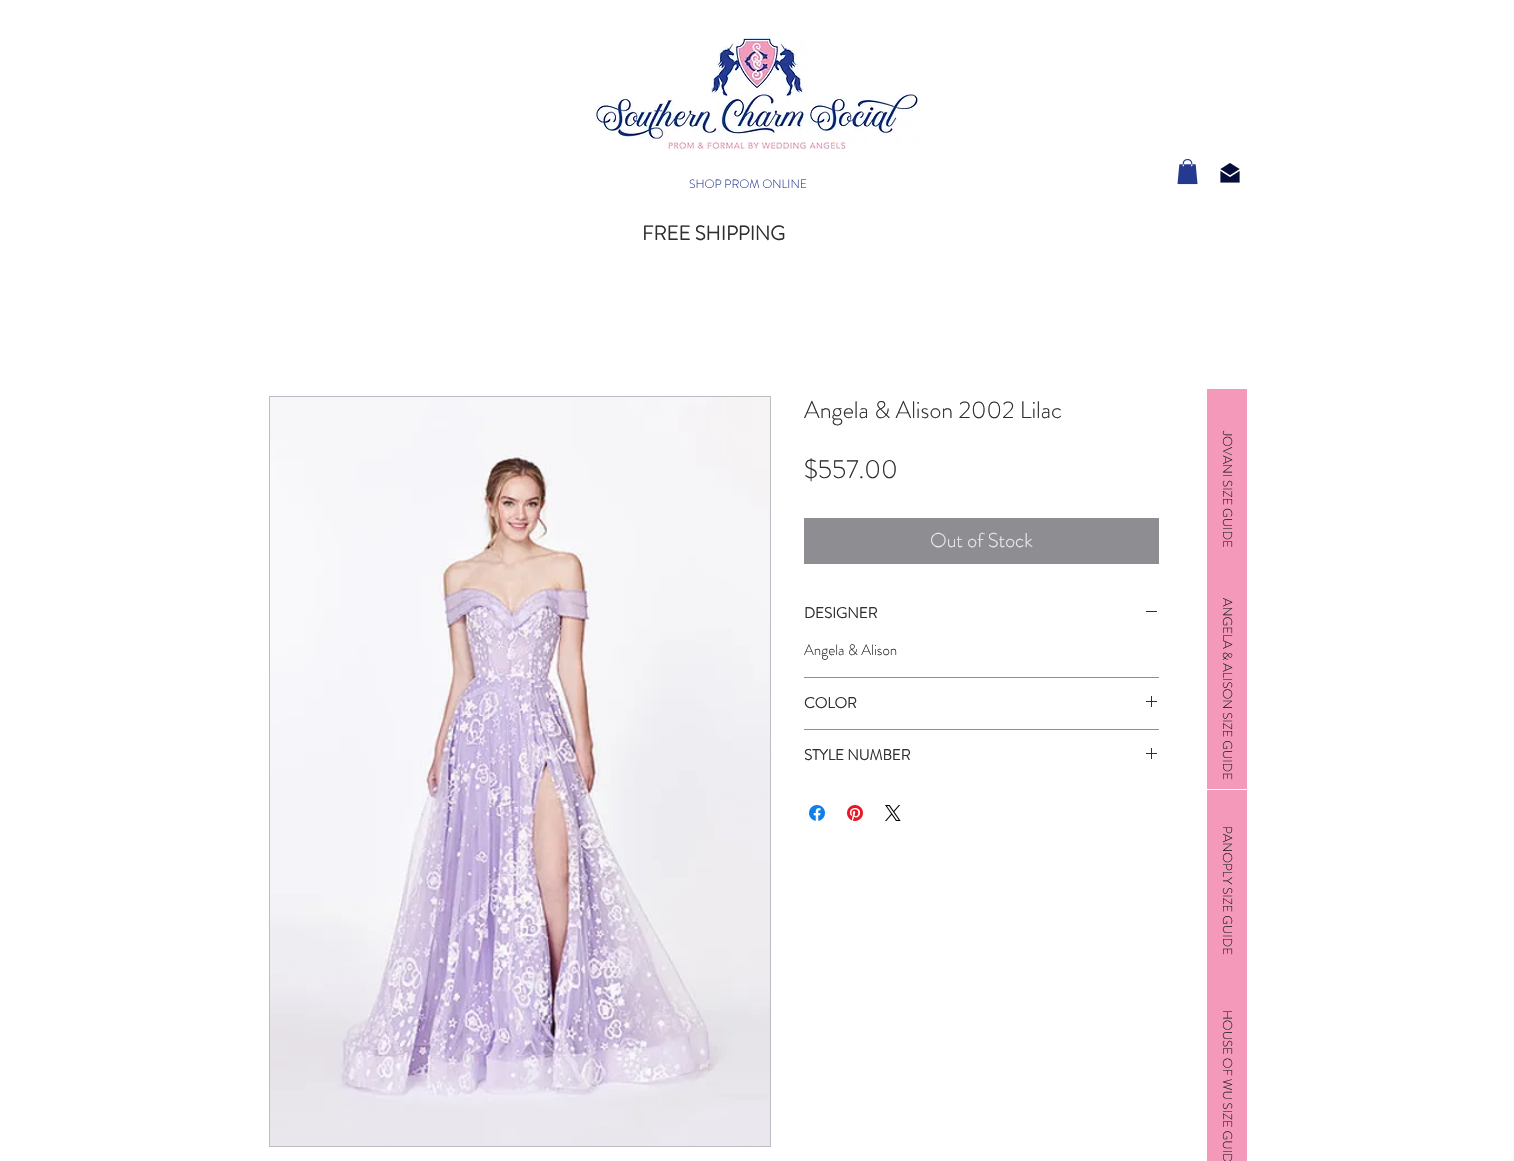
void draw(SkCanvas* canvas) {
    SkPaint paint;
    paint.setAntiAlias(true);
    auto face = [&](const char* family, int weight, float size, bool italic = false) {
        SkFontStyle style(weight, SkFontStyle::kNormal_Width,
            italic ? SkFontStyle::kItalic_Slant : SkFontStyle::kUpright_Slant);
        SkFont result(fontMgr->matchFamilyStyle(family, style), size);
        result.setSubpixel(true);
        return result;
    };
    auto write = [&](const char* s, float x, float y, const SkFont& font, SkColor color) {
        SkPaint ink(SkColor4f::FromColor(color));
        ink.setAntiAlias(true);
        canvas->drawString(s, x, y, font, ink);
    };
    auto block = [&](float x, float y, float w, float h, SkColor color) {
        SkPaint ink(SkColor4f::FromColor(color));
        ink.setAntiAlias(true);
        canvas->drawRect(SkRect::MakeXYWH(x, y, w, h), ink);
    };
    auto paste = [&](const char* path, float x, float y, float w, float h) {
        auto image = SkImages::DeferredFromEncodedData(SkData::MakeFromFileName(path));
        canvas->drawImageRect(image, SkRect::MakeXYWH(x, y, w, h), SkSamplingOptions());
    };
    canvas->clear(SK_ColorWHITE);
    paste("pic1.png", 594, 37, 325, 113);
    paste("pic2.png", 1177, 159, 21, 26);
    paste("pic3.png", 1220, 163, 20, 20);
    auto kFont1 = face("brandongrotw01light", 300, 12);
    write("SHOP PROM ONLINE", 689, 188, kFont1, SkColorSetRGB(37, 57, 143));
    auto kFont2 = face("brandongrotw01light", 700, 20);
    write("FREE SHIPPING", 642, 240, kFont2, SkColorSetRGB(47, 47, 48));
    paint.setStyle(SkPaint::kStroke_Style);
    paint.setStrokeWidth(1);
    paint.setColor(SkColorSetRGB(190, 188, 194));
    canvas->drawRect(SkRect::MakeXYWH(269.5f, 396.5f, 501, 750), paint);
    paste("pic4.png", 270, 397, 500, 749);
    auto kFont3 = face("brandongrotw01light", 300, 24);
    write("Angela & Alison 2002 Lilac", 804, 418, kFont3, SkColorSetRGB(47, 47, 48));
    auto kFont4 = face("brandongrotw01light", 300, 26);
    write("$557.00", 804, 478, kFont4, SkColorSetRGB(47, 47, 48));
    block(804, 518, 355, 46, SkColorSetRGB(142, 141, 145));
    auto kFont5 = face("brandongrotw01light", 300, 20);
    write("Out of Stock", 930, 547, kFont5, SkColorSetRGB(237, 235, 242));
    block(804, 677, 355, 1, SkColorSetRGB(142, 141, 145));
    auto kFont6 = face("brandongrotw01light", 700, 15);
    write("DESIGNER", 804, 618, kFont6, SkColorSetRGB(47, 47, 48));
    block(1146, 611, 11, 1, SkColorSetRGB(47, 47, 48));
    auto kFont7 = face("brandongrotw01light", 300, 15);
    write("Angela & Alison", 804, 655, kFont7, SkColorSetRGB(47, 47, 48));
    block(804, 729, 355, 1, SkColorSetRGB(142, 141, 145));
    write("COLOR", 804, 708, kFont6, SkColorSetRGB(47, 47, 48));
    paste("pic5.png", 1146, 696, 11, 11);
    write("STYLE NUMBER", 804, 760, kFont6, SkColorSetRGB(47, 47, 48));
    paste("pic5.png", 1146, 748, 11, 11);
    paste("pic6.png", 809, 805, 16, 16);
    paste("pic7.png", 847, 805, 16, 16);
    paste("pic8.png", 885, 805, 16, 16);
    block(1207, 389, 40, 400, SkColorSetRGB(244, 153, 186));
    auto kFont8 = face("brandongrotw01light", 300, 13);
    canvas->save();
    canvas->rotate(90, 1223, 431);
    write("JOVANI SIZE GUIDE", 1223, 431, kFont8, SkColorSetRGB(36, 35, 35));
    canvas->restore();
    canvas->save();
    canvas->rotate(90, 1223, 598);
    write("ANGELA & ALISON SIZE GUIDE", 1223, 598, kFont8, SkColorSetRGB(36, 35, 35));
    canvas->restore();
    block(1207, 790, 40, 371, SkColorSetRGB(244, 153, 186));
    canvas->save();
    canvas->rotate(90, 1223, 826);
    write("PANOPLY SIZE GUIDE", 1223, 826, kFont8, SkColorSetRGB(36, 35, 35));
    canvas->restore();
    canvas->save();
    canvas->rotate(90, 1223, 1010);
    write("HOUSE OF WU SIZE GUIDE", 1223, 1010, kFont8, SkColorSetRGB(36, 35, 35));
    canvas->restore();
}
